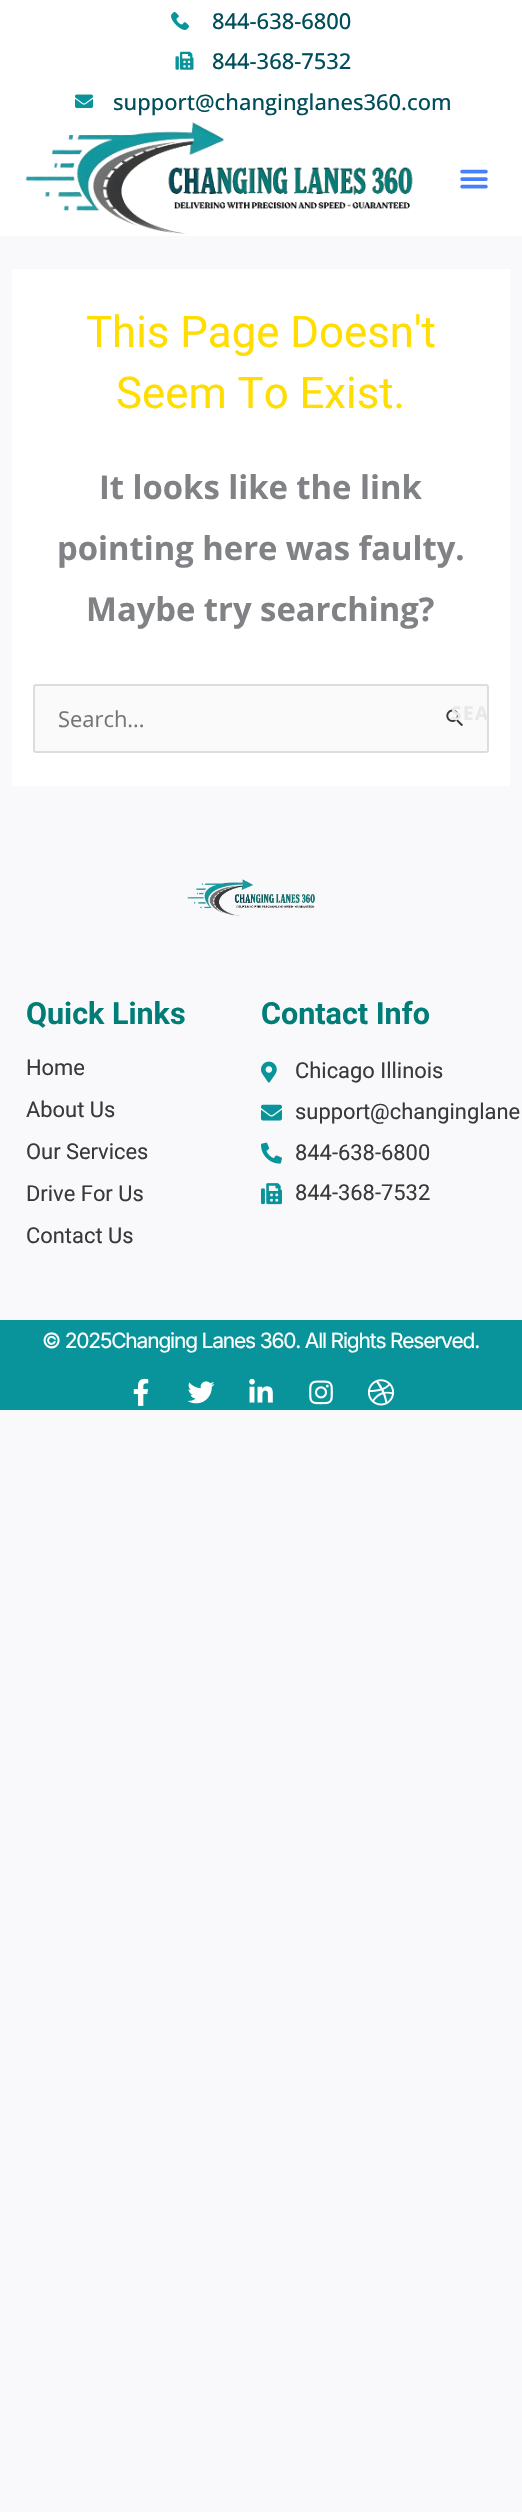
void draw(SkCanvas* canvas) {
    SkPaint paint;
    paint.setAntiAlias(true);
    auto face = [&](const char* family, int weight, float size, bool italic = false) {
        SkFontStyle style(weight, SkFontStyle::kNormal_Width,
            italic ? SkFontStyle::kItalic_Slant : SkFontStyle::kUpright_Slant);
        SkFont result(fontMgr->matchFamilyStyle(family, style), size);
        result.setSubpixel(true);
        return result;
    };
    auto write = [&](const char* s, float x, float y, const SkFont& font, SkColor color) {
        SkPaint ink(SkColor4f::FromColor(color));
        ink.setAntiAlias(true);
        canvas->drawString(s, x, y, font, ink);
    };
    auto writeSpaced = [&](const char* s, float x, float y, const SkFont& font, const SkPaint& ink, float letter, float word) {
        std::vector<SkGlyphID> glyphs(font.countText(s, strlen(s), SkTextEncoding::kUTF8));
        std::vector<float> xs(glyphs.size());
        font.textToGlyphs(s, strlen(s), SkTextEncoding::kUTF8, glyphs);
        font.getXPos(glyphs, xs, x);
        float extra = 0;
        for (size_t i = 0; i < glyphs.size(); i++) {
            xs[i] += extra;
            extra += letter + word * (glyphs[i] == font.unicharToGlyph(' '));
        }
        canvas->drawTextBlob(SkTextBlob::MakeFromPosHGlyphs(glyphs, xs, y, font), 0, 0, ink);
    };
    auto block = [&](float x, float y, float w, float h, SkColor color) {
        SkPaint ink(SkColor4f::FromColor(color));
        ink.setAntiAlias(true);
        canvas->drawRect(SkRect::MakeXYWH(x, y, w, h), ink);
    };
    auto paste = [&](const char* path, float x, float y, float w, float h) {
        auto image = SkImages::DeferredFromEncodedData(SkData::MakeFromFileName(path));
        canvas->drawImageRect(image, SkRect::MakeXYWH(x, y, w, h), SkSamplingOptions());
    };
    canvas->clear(SkColorSetRGB(249, 249, 251));
    block(0, 0, 522, 236, SK_ColorWHITE);
    paste("pic1.png", 25, 122, 388, 112);
    paste("pic2.png", 460, 169, 28, 20);
    paste("pic3.png", 171, 12, 18, 18);
    auto kFont1 = face("Open Sans", 500, 21.9f);
    write("844-638-6800", 212, 29, kFont1, SkColorSetRGB(0, 78, 91));
    paste("pic4.png", 175, 51, 19, 19);
    write("844-368-7532", 212, 69, kFont1, SkColorSetRGB(0, 78, 91));
    paste("pic5.png", 75, 94, 18, 14);
    write("support@changinglanes360.com", 113, 110, kFont1, SkColorSetRGB(0, 78, 91));
    block(12, 269, 498, 517, SK_ColorWHITE);
    auto kFont2 = face("Roboto", 400, 43.75f);
    write("This Page Doesn't", 86, 347, kFont2, SkColorSetRGB(255, 221, 0));
    write("Seem To Exist.", 116, 408, kFont2, SkColorSetRGB(255, 221, 0));
    auto kFont3 = face("Open Sans", 700, 32.75f);
    write("It looks like the link", 99, 499, kFont3, SkColorSetRGB(128, 130, 133));
    write("pointing here was faulty.", 57, 560, kFont3, SkColorSetRGB(128, 130, 133));
    write("Maybe try searching?", 86, 621, kFont3, SkColorSetRGB(128, 130, 133));
    paint.setColor(SkColorSetRGB(250, 250, 250));
    canvas->drawRoundRect(SkRect::MakeXYWH(34, 685, 454, 67), 2, 2, paint);
    paint.setStyle(SkPaint::kStroke_Style);
    paint.setStrokeWidth(2);
    paint.setColor(SkColorSetRGB(221, 221, 221));
    canvas->drawRoundRect(SkRect::MakeXYWH(34, 685, 454, 67), 2, 2, paint);
    auto kFont4 = face("Open Sans", 400, 21.9f);
    write("Search...", 58, 727, kFont4, SkColorSetRGB(117, 117, 117));
    paste("pic6.png", 446, 709, 17, 17);
    auto kFont5 = face("Open Sans", 700, 19);
    paint.setStyle(SkPaint::kFill_Style);
    paint.setColor(SkColorSetRGB(232, 232, 232));
    writeSpaced("SEA", 451, 720, kFont5, paint, 1.5f, 0);
    paste("pic7.png", 187, 879, 128, 37);
    auto kFont6 = face("Roboto", 700, 30.5f);
    write("Quick Links", 26, 1024, kFont6, SkColorSetRGB(0, 125, 119));
    auto kFont7 = face("Roboto", 400, 21.9f);
    write("Home", 26, 1075, kFont7, SkColorSetRGB(57, 57, 57));
    write("About Us", 26, 1117, kFont7, SkColorSetRGB(57, 57, 57));
    write("Our Services", 26, 1159, kFont7, SkColorSetRGB(57, 57, 57));
    write("Drive For Us", 26, 1201, kFont7, SkColorSetRGB(57, 57, 57));
    write("Contact Us", 26, 1243, kFont7, SkColorSetRGB(57, 57, 57));
    write("Contact Info", 261, 1024, kFont6, SkColorSetRGB(0, 125, 119));
    paste("pic8.png", 261, 1061, 16, 22);
    write("Chicago Illinois", 295, 1078, kFont7, SkColorSetRGB(57, 57, 57));
    paste("pic9.png", 261, 1104, 21, 17);
    write("support@changinglane", 295, 1119, kFont7, SkColorSetRGB(57, 57, 57));
    paste("pic10.png", 261, 1142, 21, 22);
    write("844-638-6800", 295, 1160, kFont7, SkColorSetRGB(57, 57, 57));
    paste("pic11.png", 261, 1183, 21, 22);
    write("844-368-7532", 295, 1200, kFont7, SkColorSetRGB(57, 57, 57));
    block(0, 1320, 522, 90, SkColorSetRGB(9, 148, 155));
    auto kFont8 = face("Inter", 400, 21);
    paint.setColor(SK_ColorWHITE);
    writeSpaced("© 2025Changing Lanes 360. All Rights Reserved.", 42, 1348, kFont8, paint, -1.2f, 0);
    paste("pic12.png", 133, 1378, 16, 28);
    paste("pic13.png", 187, 1381, 28, 23);
    paste("pic14.png", 249, 1378, 24, 25);
    paste("pic15.png", 309, 1380, 24, 25);
    paste("pic16.png", 367, 1379, 28, 27);
}
